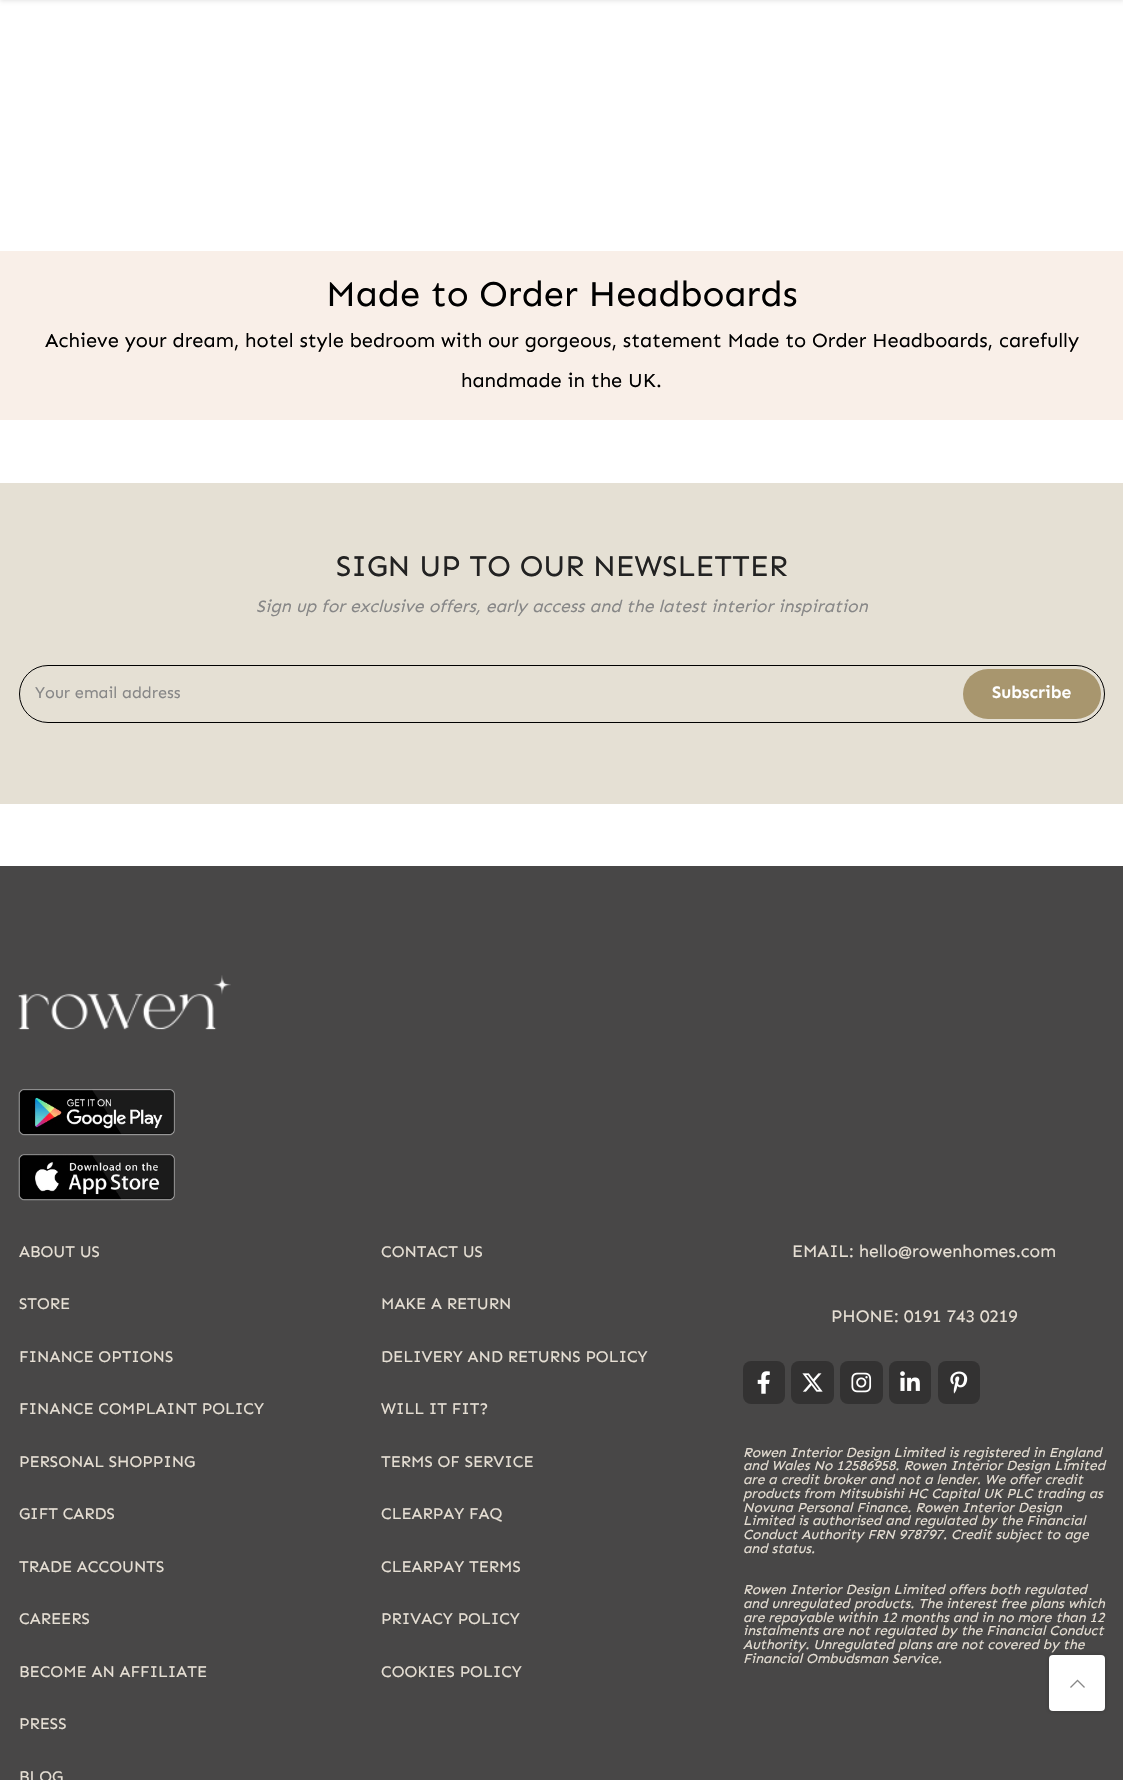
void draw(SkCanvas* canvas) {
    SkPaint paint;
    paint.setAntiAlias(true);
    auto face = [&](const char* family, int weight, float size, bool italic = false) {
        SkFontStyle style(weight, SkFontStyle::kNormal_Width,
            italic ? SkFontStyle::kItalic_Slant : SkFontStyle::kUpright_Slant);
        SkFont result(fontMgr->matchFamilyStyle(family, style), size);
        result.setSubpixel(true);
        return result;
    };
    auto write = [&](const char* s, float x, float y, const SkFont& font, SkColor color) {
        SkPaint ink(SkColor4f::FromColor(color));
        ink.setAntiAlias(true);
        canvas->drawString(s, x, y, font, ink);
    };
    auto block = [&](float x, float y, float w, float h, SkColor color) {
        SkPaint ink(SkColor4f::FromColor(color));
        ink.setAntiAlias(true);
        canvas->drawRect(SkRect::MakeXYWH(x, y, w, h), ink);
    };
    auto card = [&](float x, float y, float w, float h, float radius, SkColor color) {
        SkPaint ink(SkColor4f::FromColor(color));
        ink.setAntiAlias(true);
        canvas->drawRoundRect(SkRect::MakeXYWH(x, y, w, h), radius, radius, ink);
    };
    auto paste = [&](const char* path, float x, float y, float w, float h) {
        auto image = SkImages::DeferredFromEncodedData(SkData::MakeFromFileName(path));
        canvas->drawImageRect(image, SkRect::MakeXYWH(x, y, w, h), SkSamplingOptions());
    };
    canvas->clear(SK_ColorWHITE);
    paint.setColor(SkColorSetARGB(26, 0, 0, 0));
    paint.setMaskFilter(SkMaskFilter::MakeBlur(kNormal_SkBlurStyle, 2));
    canvas->drawRect(SkRect::MakeXYWH(0, -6, 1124, 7), paint);
    paint.setMaskFilter(nullptr);
    block(0, 251, 1123, 169, SkColorSetRGB(249, 239, 232));
    auto kFont1 = face("Sen", 400, 36.25f);
    write("Made to Order Headboards", 326, 306, kFont1, SK_ColorBLACK);
    auto kFont2 = face("Sen", 400, 20);
    write("Achieve your dream, hotel style bedroom with our gorgeous, statement Made to Order Headboards, carefully", 45, 347, kFont2, SK_ColorBLACK);
    write("handmade in the UK.", 461, 387, kFont2, SK_ColorBLACK);
    block(0, 483, 1123, 321, SkColorSetRGB(229, 224, 212));
    auto kFont3 = face("Sen", 400, 30);
    write("SIGN UP TO OUR NEWSLETTER", 336, 576, kFont3, SkColorSetRGB(34, 34, 34));
    auto kFont4 = face("Sen", 400, 17.5f, true);
    write("Sign up for exclusive offers, early access and the latest interior inspiration", 256, 612, kFont4, SkColorSetRGB(135, 135, 135));
    paint.setStyle(SkPaint::kStroke_Style);
    paint.setStrokeWidth(1);
    paint.setColor(SK_ColorBLACK);
    canvas->drawRoundRect(SkRect::MakeXYWH(19.5f, 665.5f, 1085, 57), 28.5f, 28.5f, paint);
    auto kFont5 = face("Sen", 400, 16.25f);
    write("Your email address", 35, 698, kFont5, SkColorSetRGB(135, 135, 135));
    card(963, 669, 138, 50, 25, SkColorSetRGB(168, 150, 110));
    auto kFont6 = face("Sen", 600, 17.5f);
    write("Subscribe", 992, 698, kFont6, SK_ColorWHITE);
    block(0, 866, 1123, 914, SkColorSetRGB(72, 71, 71));
    paste("pic1.png", 18, 975, 213, 55);
    paste("pic2.png", 18, 1089, 157, 47);
    paste("pic3.png", 18, 1154, 157, 47);
    write("ABOUT US", 19, 1257, kFont5, SkColorSetRGB(230, 223, 212));
    write("STORE", 19, 1309, kFont5, SkColorSetRGB(230, 223, 212));
    write("FINANCE OPTIONS", 19, 1362, kFont5, SkColorSetRGB(230, 223, 212));
    write("FINANCE COMPLAINT POLICY", 19, 1414, kFont5, SkColorSetRGB(230, 223, 212));
    write("PERSONAL SHOPPING", 19, 1467, kFont5, SkColorSetRGB(230, 223, 212));
    write("GIFT CARDS", 19, 1519, kFont5, SkColorSetRGB(230, 223, 212));
    write("TRADE ACCOUNTS", 19, 1572, kFont5, SkColorSetRGB(230, 223, 212));
    write("CAREERS", 19, 1624, kFont5, SkColorSetRGB(230, 223, 212));
    write("BECOME AN AFFILIATE", 19, 1677, kFont5, SkColorSetRGB(230, 223, 212));
    write("PRESS", 19, 1729, kFont5, SkColorSetRGB(230, 223, 212));
    write("BLOG", 19, 1782, kFont5, SkColorSetRGB(230, 223, 212));
    write("CONTACT US", 381, 1257, kFont5, SkColorSetRGB(230, 223, 212));
    write("MAKE A RETURN", 381, 1309, kFont5, SkColorSetRGB(230, 223, 212));
    write("DELIVERY AND RETURNS POLICY", 381, 1362, kFont5, SkColorSetRGB(230, 223, 212));
    write("WILL IT FIT?", 381, 1414, kFont5, SkColorSetRGB(230, 223, 212));
    write("TERMS OF SERVICE", 381, 1467, kFont5, SkColorSetRGB(230, 223, 212));
    write("CLEARPAY FAQ", 381, 1519, kFont5, SkColorSetRGB(230, 223, 212));
    write("CLEARPAY TERMS", 381, 1572, kFont5, SkColorSetRGB(230, 223, 212));
    write("PRIVACY POLICY", 381, 1624, kFont5, SkColorSetRGB(230, 223, 212));
    write("COOKIES POLICY", 381, 1677, kFont5, SkColorSetRGB(230, 223, 212));
    auto kFont7 = face("Sen", 400, 17.5f);
    write("EMAIL: hello@rowenhomes.com", 792, 1257, kFont7, SkColorSetRGB(230, 223, 212));
    write("PHONE: 0191 743 0219", 831, 1322, kFont7, SkColorSetRGB(230, 223, 212));
    card(743, 1361, 42, 43, 8, SkColorSetRGB(51, 50, 50));
    paste("pic4.png", 757, 1371, 13, 23);
    card(791, 1361, 43, 43, 8, SkColorSetRGB(51, 50, 50));
    paste("pic5.png", 802, 1373, 21, 19);
    card(840, 1361, 43, 43, 8, SkColorSetRGB(51, 50, 50));
    paste("pic6.png", 851, 1372, 21, 21);
    card(889, 1361, 42, 43, 8, SkColorSetRGB(51, 50, 50));
    paste("pic7.png", 900, 1371, 20, 20);
    card(938, 1361, 42, 43, 8, SkColorSetRGB(51, 50, 50));
    paste("pic8.png", 950, 1371, 18, 23);
    auto kFont8 = face("Sen", 400, 13.75f, true);
    write("Rowen Interior Design Limited is registered in England", 743, 1457, kFont8, SkColorSetRGB(230, 223, 212));
    write("and Wales No 12586958. Rowen Interior Design Limited", 743, 1470, kFont8, SkColorSetRGB(230, 223, 212));
    write("are a credit broker and not a lender. We offer credit", 743, 1484, kFont8, SkColorSetRGB(230, 223, 212));
    write("products from Mitsubishi HC Capital UK PLC trading as", 743, 1498, kFont8, SkColorSetRGB(230, 223, 212));
    write("Novuna Personal Finance. Rowen Interior Design", 743, 1512, kFont8, SkColorSetRGB(230, 223, 212));
    write("Limited is authorised and regulated by the Financial", 743, 1525, kFont8, SkColorSetRGB(230, 223, 212));
    write("Conduct Authority FRN 978797. Credit subject to age", 743, 1539, kFont8, SkColorSetRGB(230, 223, 212));
    write("and status.", 743, 1553, kFont8, SkColorSetRGB(230, 223, 212));
    write("Rowen Interior Design Limited offers both regulated", 743, 1594, kFont8, SkColorSetRGB(230, 223, 212));
    write("and unregulated products. The interest free plans which", 743, 1608, kFont8, SkColorSetRGB(230, 223, 212));
    write("are repayable within 12 months and in no more than 12", 743, 1622, kFont8, SkColorSetRGB(230, 223, 212));
    write("instalments are not regulated by the Financial Conduct", 743, 1635, kFont8, SkColorSetRGB(230, 223, 212));
    write("Authority. Unregulated plans are not covered by the", 743, 1649, kFont8, SkColorSetRGB(230, 223, 212));
    write("Financial Ombudsman Service.", 743, 1663, kFont8, SkColorSetRGB(230, 223, 212));
    paint.setStyle(SkPaint::kFill_Style);
    paint.setColor(SkColorSetARGB(51, 0, 0, 0));
    paint.setMaskFilter(SkMaskFilter::MakeBlur(kNormal_SkBlurStyle, 2));
    canvas->drawRoundRect(SkRect::MakeXYWH(1049, 1655, 56, 56), 4, 4, paint);
    paint.setMaskFilter(nullptr);
    card(1049, 1655, 56, 56, 4, SK_ColorWHITE);
    paste("pic9.png", 1070, 1679, 15, 9);
}
